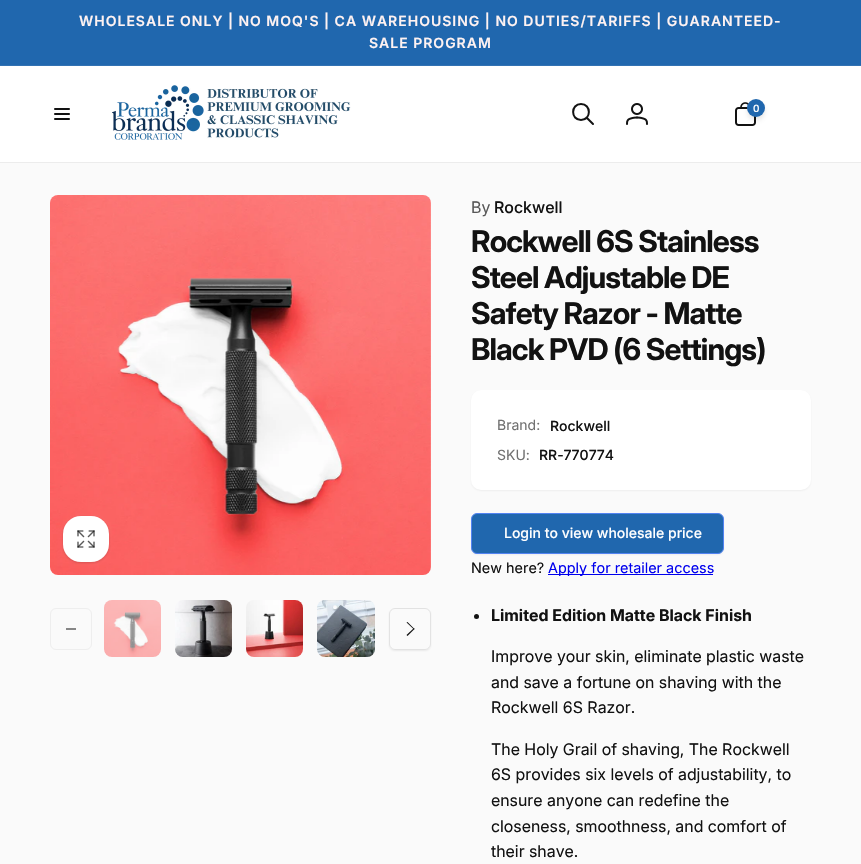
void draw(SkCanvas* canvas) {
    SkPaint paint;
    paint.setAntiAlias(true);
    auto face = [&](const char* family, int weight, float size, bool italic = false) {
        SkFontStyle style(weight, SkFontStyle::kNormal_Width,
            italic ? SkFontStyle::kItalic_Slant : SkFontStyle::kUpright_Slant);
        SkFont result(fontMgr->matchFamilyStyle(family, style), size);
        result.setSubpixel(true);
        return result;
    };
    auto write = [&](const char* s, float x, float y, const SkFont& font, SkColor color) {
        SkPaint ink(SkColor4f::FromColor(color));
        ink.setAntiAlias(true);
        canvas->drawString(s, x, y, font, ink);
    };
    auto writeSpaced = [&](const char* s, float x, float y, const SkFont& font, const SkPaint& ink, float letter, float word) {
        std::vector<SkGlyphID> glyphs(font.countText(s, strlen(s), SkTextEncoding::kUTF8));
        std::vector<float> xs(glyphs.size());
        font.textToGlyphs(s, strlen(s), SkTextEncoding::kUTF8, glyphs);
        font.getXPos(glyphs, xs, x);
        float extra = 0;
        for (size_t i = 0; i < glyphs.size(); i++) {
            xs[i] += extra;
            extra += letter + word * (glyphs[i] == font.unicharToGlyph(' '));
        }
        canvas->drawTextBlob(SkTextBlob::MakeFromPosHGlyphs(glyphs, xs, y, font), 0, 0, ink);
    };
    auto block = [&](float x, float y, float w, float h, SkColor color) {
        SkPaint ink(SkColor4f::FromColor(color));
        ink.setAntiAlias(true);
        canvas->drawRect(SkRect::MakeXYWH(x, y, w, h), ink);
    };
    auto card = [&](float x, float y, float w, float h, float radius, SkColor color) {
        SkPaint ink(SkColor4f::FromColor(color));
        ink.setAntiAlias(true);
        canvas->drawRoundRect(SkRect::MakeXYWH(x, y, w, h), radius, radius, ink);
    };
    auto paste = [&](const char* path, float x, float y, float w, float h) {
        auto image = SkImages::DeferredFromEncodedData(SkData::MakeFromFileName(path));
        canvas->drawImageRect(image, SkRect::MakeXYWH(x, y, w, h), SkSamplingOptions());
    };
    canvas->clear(SK_ColorWHITE);
    block(0, 0, 861, 65, SkColorSetRGB(32, 103, 174));
    block(0, 65, 861, 1, SkColorSetRGB(50, 114, 179));
    auto kFont1 = face("Inter", 600, 14);
    paint.setColor(SkColorSetRGB(254, 242, 242));
    writeSpaced("WHOLESALE ONLY | NO MOQ'S | CA WAREHOUSING | NO DUTIES/TARIFFS | GUARANTEED-", 79, 26, kFont1, paint, 1, 0);
    writeSpaced("SALE PROGRAM", 369, 48, kFont1, paint, 1, 0);
    block(0, 162, 861, 1, SkColorSetRGB(236, 236, 236));
    paste("pic1.png", 54, 108, 16, 12);
    paste("pic2.png", 112, 85, 239, 55);
    paint.setStyle(SkPaint::kStroke_Style);
    paint.setStrokeWidth(2);
    paint.setStrokeCap(SkPaint::kRound_Cap);
    paint.setStrokeJoin(SkPaint::kRound_Join);
    paint.setColor(SkColorSetRGB(18, 18, 18));
    canvas->drawPath(SkPathBuilder().moveTo(593, 124).lineTo(586.5f, 117.5f).moveTo(581, 120).cubicTo(591.5f, 120, 591.5f, 104, 581, 104).cubicTo(570.5f, 104, 570.5f, 120, 581, 120).close().detach(), paint);
    paste("pic3.png", 626, 103, 22, 22);
    paste("pic4.png", 735, 102, 21, 24);
    paint.setStyle(SkPaint::kFill_Style);
    paint.setColor(SkColorSetARGB(15, 18, 18, 18));
    paint.setMaskFilter(SkMaskFilter::MakeBlur(kNormal_SkBlurStyle, 2));
    canvas->drawRoundRect(SkRect::MakeXYWH(748, 102, 16, 16), 8, 8, paint);
    paint.setMaskFilter(nullptr);
    paint.setColor(SkColorSetARGB(26, 18, 18, 18));
    paint.setMaskFilter(SkMaskFilter::MakeBlur(kNormal_SkBlurStyle, 3));
    canvas->drawRoundRect(SkRect::MakeXYWH(748, 104, 16, 16), 8, 8, paint);
    paint.setMaskFilter(nullptr);
    paint.setColor(SkColorSetRGB(32, 103, 174));
    canvas->drawCircle(756, 108, 9, paint);
    auto kFont2 = face("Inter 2", 500, 10);
    write("0", 753, 112, kFont2, SK_ColorWHITE);
    block(0, 163, 861, 701, SkColorSetRGB(250, 250, 250));
    paste("pic5.png", 50, 195, 381, 380);
    paint.setColor(SkColorSetARGB(15, 18, 18, 18));
    paint.setMaskFilter(SkMaskFilter::MakeBlur(kNormal_SkBlurStyle, 1));
    canvas->drawRoundRect(SkRect::MakeXYWH(63, 517, 46, 46), 18, 18, paint);
    paint.setMaskFilter(nullptr);
    paint.setColor(SkColorSetARGB(26, 18, 18, 18));
    paint.setMaskFilter(SkMaskFilter::MakeBlur(kNormal_SkBlurStyle, 1.5f));
    canvas->drawRoundRect(SkRect::MakeXYWH(63, 517, 46, 46), 18, 18, paint);
    paint.setMaskFilter(nullptr);
    card(63, 516, 46, 46, 18, SK_ColorWHITE);
    paste("pic6.png", 77, 530, 18, 18);
    paint.setStyle(SkPaint::kStroke_Style);
    paint.setStrokeWidth(1);
    paint.setStrokeCap(SkPaint::kButt_Cap);
    paint.setStrokeJoin(SkPaint::kMiter_Join);
    paint.setColor(SkColorSetRGB(238, 238, 238));
    canvas->drawRoundRect(SkRect::MakeXYWH(50.5f, 608.5f, 41, 41), 5.5f, 5.5f, paint);
    block(66, 628, 10, 2, SkColorSetRGB(134, 134, 134));
    paste("pic7.png", 104, 600, 57, 57);
    paste("pic8.png", 175, 600, 57, 57);
    paste("pic9.png", 246, 600, 57, 57);
    paste("pic10.png", 317, 600, 58, 57);
    canvas->save();
    canvas->clipPath(SkPathBuilder(SkPathFillType::kEvenOdd).moveTo(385, 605).lineTo(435, 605).lineTo(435, 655).lineTo(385, 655).close().moveTo(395, 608).lineTo(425, 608).cubicTo(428.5f, 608, 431, 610.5f, 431, 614).lineTo(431, 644).cubicTo(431, 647.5f, 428.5f, 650, 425, 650).lineTo(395, 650).cubicTo(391.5f, 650, 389, 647.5f, 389, 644).lineTo(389, 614).cubicTo(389, 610.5f, 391.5f, 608, 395, 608).close().detach(), true);
    paint.setStyle(SkPaint::kFill_Style);
    paint.setColor(SkColorSetARGB(18, 18, 18, 18));
    paint.setMaskFilter(SkMaskFilter::MakeBlur(kNormal_SkBlurStyle, 1));
    canvas->drawRoundRect(SkRect::MakeXYWH(389, 609, 42, 42), 6, 6, paint);
    paint.setMaskFilter(nullptr);
    canvas->restore();
    paint.setStyle(SkPaint::kStroke_Style);
    paint.setColor(SkColorSetARGB(26, 18, 18, 18));
    canvas->drawRoundRect(SkRect::MakeXYWH(389.5f, 608.5f, 41, 41), 5.5f, 5.5f, paint);
    paint.setStyle(SkPaint::kFill_Style);
    paint.setColor(SkColorSetRGB(18, 18, 18));
    canvas->drawPath(SkPathBuilder().moveTo(406.5f, 622.5f).lineTo(407.5f, 622).lineTo(414.5f, 629).lineTo(414, 629.5f).close().detach(), paint);
    canvas->drawPath(SkPathBuilder().moveTo(414, 628).lineTo(414.5f, 629).lineTo(407.5f, 636).lineTo(406.5f, 635).close().detach(), paint);
    auto kFont3 = face("Inter", 400, 16);
    write("By", 471, 213, kFont3, SkColorSetRGB(88, 88, 88));
    auto kFont4 = face("Inter", 500, 16);
    write("Rockwell", 494, 213, kFont4, SkColorSetRGB(18, 18, 18));
    auto kFont5 = face("Inter", 700, 30);
    writeSpaced("Rockwell 6S Stainless", 471, 252, kFont5, paint, -0.9f, 0);
    writeSpaced("Steel Adjustable DE", 471, 288, kFont5, paint, -0.9f, 0);
    writeSpaced("Safety Razor - Matte", 471, 324, kFont5, paint, -0.9f, 0);
    writeSpaced("Black PVD (6 Settings)", 471, 360, kFont5, paint, -0.9f, 0);
    paint.setColor(SkColorSetARGB(13, 18, 18, 18));
    paint.setMaskFilter(SkMaskFilter::MakeBlur(kNormal_SkBlurStyle, 1));
    canvas->drawRoundRect(SkRect::MakeXYWH(471, 391, 340, 100), 10, 10, paint);
    paint.setMaskFilter(nullptr);
    card(471, 390, 340, 100, 10, SK_ColorWHITE);
    auto kFont6 = face("Inter 2", 400, 14);
    write("Brand:", 497, 430, kFont6, SkColorSetRGB(113, 113, 113));
    auto kFont7 = face("Inter 2", 500, 14);
    write("Rockwell", 550, 431, kFont7, SkColorSetRGB(18, 18, 18));
    write("SKU:", 497, 460, kFont6, SkColorSetRGB(113, 113, 113));
    write("RR-770774", 539, 460, kFont7, SkColorSetRGB(18, 18, 18));
    paint.setMaskFilter(SkMaskFilter::MakeBlur(kNormal_SkBlurStyle, 1));
    canvas->drawRoundRect(SkRect::MakeXYWH(471, 514, 253, 41), 6, 6, paint);
    paint.setMaskFilter(nullptr);
    paint.setColor(SkColorSetRGB(32, 103, 174));
    canvas->drawRoundRect(SkRect::MakeXYWH(471.5f, 513.5f, 252, 40), 5.5f, 5.5f, paint);
    paint.setStyle(SkPaint::kStroke_Style);
    paint.setColor(SkColorSetRGB(82, 131, 242));
    canvas->drawRoundRect(SkRect::MakeXYWH(471.5f, 513.5f, 252, 40), 5.5f, 5.5f, paint);
    write("Login to view wholesale price", 504, 538, kFont7, SK_ColorWHITE);
    auto kFont8 = face("Inter 2", 400, 14.4f);
    write("New here?", 471, 573, kFont8, SkColorSetRGB(18, 18, 18));
    block(548, 574, 165, 1, SkColorSetRGB(0, 0, 238));
    write("Apply for retailer access", 548, 573, kFont8, SkColorSetRGB(0, 0, 238));
    paint.setStyle(SkPaint::kFill_Style);
    paint.setColor(SkColorSetRGB(18, 18, 18));
    canvas->drawCircle(476.5f, 616.5f, 2.5f, paint);
    auto kFont9 = face("Inter 2", 700, 16);
    write("Limited Edition Matte Black Finish", 491, 621, kFont9, SkColorSetRGB(18, 18, 18));
    write("Improve your skin, eliminate plastic waste", 491, 662, kFont3, SkColorSetRGB(18, 18, 18));
    write("and save a fortune on shaving with the", 491, 688, kFont3, SkColorSetRGB(18, 18, 18));
    write("Rockwell 6S Razor.", 491, 713, kFont3, SkColorSetRGB(18, 18, 18));
    write("The Holy Grail of shaving, The Rockwell", 491, 755, kFont3, SkColorSetRGB(18, 18, 18));
    write("6S provides six levels of adjustability, to", 491, 780, kFont3, SkColorSetRGB(18, 18, 18));
    write("ensure anyone can redefine the", 491, 806, kFont3, SkColorSetRGB(18, 18, 18));
    write("closeness, smoothness, and comfort of", 491, 832, kFont3, SkColorSetRGB(18, 18, 18));
    write("their shave.", 491, 857, kFont3, SkColorSetRGB(18, 18, 18));
}
